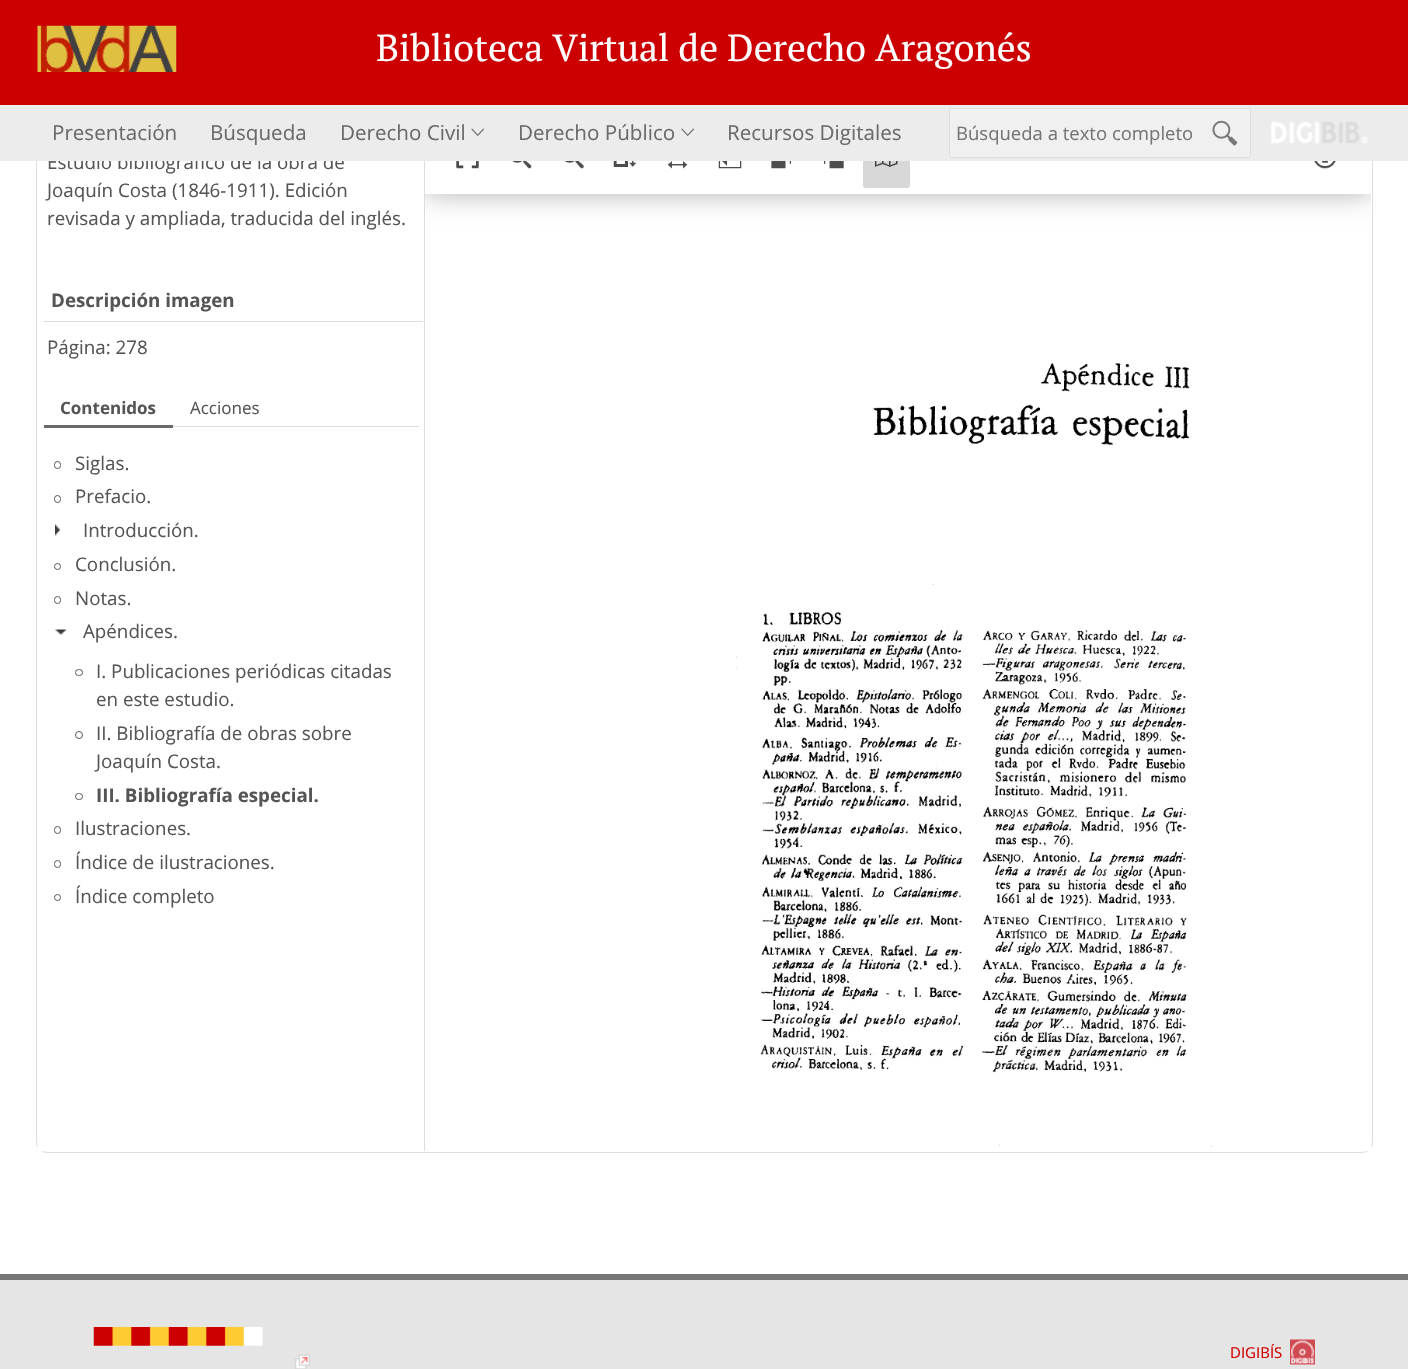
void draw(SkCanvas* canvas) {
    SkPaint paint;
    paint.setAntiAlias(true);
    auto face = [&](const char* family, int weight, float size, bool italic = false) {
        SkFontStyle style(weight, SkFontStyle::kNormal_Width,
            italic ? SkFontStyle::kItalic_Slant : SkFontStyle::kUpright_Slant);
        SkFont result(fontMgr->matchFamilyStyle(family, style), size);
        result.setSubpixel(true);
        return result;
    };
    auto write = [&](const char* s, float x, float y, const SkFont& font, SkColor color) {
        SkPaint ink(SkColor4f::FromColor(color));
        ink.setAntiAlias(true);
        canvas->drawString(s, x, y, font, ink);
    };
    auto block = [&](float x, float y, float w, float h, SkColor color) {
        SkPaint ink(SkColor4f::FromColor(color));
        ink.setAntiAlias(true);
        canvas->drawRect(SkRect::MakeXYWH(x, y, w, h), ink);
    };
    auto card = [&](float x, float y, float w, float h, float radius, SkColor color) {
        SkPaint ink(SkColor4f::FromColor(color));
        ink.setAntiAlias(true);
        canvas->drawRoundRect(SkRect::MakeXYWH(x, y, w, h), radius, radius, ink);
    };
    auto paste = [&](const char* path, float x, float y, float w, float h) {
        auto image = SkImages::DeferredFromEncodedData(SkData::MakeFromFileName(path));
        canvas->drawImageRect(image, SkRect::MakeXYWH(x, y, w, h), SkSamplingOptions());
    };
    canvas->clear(SK_ColorWHITE);
    paint.setStyle(SkPaint::kStroke_Style);
    paint.setStrokeWidth(1);
    paint.setColor(SkColorSetRGB(221, 221, 221));
    canvas->drawRoundRect(SkRect::MakeXYWH(36.5f, 71.5f, 1336, 1081), 10.5f, 10.5f, paint);
    block(424, 161, 1, 990, SkColorSetRGB(221, 221, 221));
    canvas->save();
    canvas->clipRect(SkRect::MakeXYWH(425, 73, 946, 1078));
    canvas->clipPath(SkPathBuilder(SkPathFillType::kEvenOdd).moveTo(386, 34).lineTo(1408, 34).lineTo(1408, 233).lineTo(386, 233).close().moveTo(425, 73).lineTo(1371, 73).lineTo(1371, 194).lineTo(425, 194).close().detach(), true);
    paint.setStyle(SkPaint::kFill_Style);
    paint.setColor(SkColorSetARGB(77, 0, 0, 0));
    paint.setMaskFilter(SkMaskFilter::MakeBlur(kNormal_SkBlurStyle, 12.5f));
    canvas->drawRect(SkRect::MakeXYWH(425, 73, 946, 121), paint);
    paint.setMaskFilter(nullptr);
    canvas->restore();
    block(0, 0, 1408, 105, SkColorSetRGB(204, 0, 0));
    paste("pic1.png", 37, 25, 140, 47);
    auto kFont1 = face("PT Serif", 400, 37.5f);
    write("Biblioteca Virtual de Derecho Aragonés", 376, 61, kFont1, SK_ColorWHITE);
    auto kFont2 = face("Open Sans", 400, 18.75f);
    write("Estudio bibliográfico de la obra de", 47, 169, kFont2, SkColorSetRGB(85, 85, 85));
    card(863, 134, 47, 54, 2.5f, SkColorSetRGB(216, 216, 216));
    block(0, 105, 1408, 56, SkColorSetRGB(236, 236, 236));
    auto kFont3 = face("Open Sans", 400, 20.6f);
    write("Presentación", 52, 140, kFont3, SkColorSetRGB(107, 107, 107));
    write("Búsqueda", 210, 140, kFont3, SkColorSetRGB(107, 107, 107));
    write("Derecho Civil", 340, 140, kFont3, SkColorSetRGB(107, 107, 107));
    paste("pic2.png", 471, 128, 13, 8);
    write("Derecho Público", 518, 140, kFont3, SkColorSetRGB(107, 107, 107));
    paste("pic2.png", 681, 128, 13, 8);
    write("Recursos Digitales", 727, 140, kFont3, SkColorSetRGB(107, 107, 107));
    paint.setColor(SkColorSetRGB(240, 240, 240));
    canvas->drawRoundRect(SkRect::MakeXYWH(949.5f, 108.5f, 301, 49), 2, 2, paint);
    paint.setStyle(SkPaint::kStroke_Style);
    paint.setColor(SkColorSetRGB(221, 221, 221));
    canvas->drawRoundRect(SkRect::MakeXYWH(949.5f, 108.5f, 301, 49), 2, 2, paint);
    auto kFont4 = face("Open Sans", 400, 18.5f);
    write("Búsqueda a texto completo", 956, 140, kFont4, SkColorSetRGB(117, 117, 117));
    paste("pic3.png", 1212, 120, 26, 26);
    paste("pic4.png", 1271, 121, 97, 23);
    block(38, 1146, 5, 5, SK_ColorWHITE);
    write("Joaquín Costa (1846-1911). Edición", 47, 197, kFont2, SkColorSetRGB(85, 85, 85));
    write("revisada y ampliada, traducida del inglés.", 47, 225, kFont2, SkColorSetRGB(85, 85, 85));
    block(44, 321, 379, 1, SkColorSetRGB(221, 221, 221));
    auto kFont5 = face("Open Sans", 700, 18.75f);
    write("Descripción imagen", 51, 307, kFont5, SkColorSetRGB(85, 85, 85));
    write("Página: 278", 47, 354, kFont2, SkColorSetRGB(85, 85, 85));
    block(173, 426, 246, 1, SkColorSetRGB(221, 221, 221));
    block(44, 425, 129, 3, SkColorSetRGB(105, 105, 105));
    auto kFont6 = face("Open Sans", 700, 17);
    write("Contenidos", 60, 414, kFont6, SkColorSetRGB(85, 85, 85));
    auto kFont7 = face("Open Sans", 400, 17);
    write("Acciones", 190, 414, kFont7, SkColorSetRGB(85, 85, 85));
    paint.setColor(SkColorSetRGB(85, 85, 85));
    canvas->drawRoundRect(SkRect::MakeXYWH(54.5f, 461.5f, 6, 7), 3, 3, paint);
    write("Siglas.", 75, 470, kFont2, SkColorSetRGB(85, 85, 85));
    canvas->drawRoundRect(SkRect::MakeXYWH(54.5f, 495.5f, 6, 7), 3, 3, paint);
    write("Prefacio.", 75, 503, kFont2, SkColorSetRGB(85, 85, 85));
    paste("pic5.png", 55, 524, 5, 12);
    write("Introducción.", 83, 537, kFont2, SkColorSetRGB(85, 85, 85));
    canvas->drawCircle(57.5f, 566.5f, 3, paint);
    write("Conclusión.", 75, 571, kFont2, SkColorSetRGB(85, 85, 85));
    canvas->drawRoundRect(SkRect::MakeXYWH(54.5f, 596.5f, 6, 7), 3, 3, paint);
    write("Notas.", 75, 605, kFont2, SkColorSetRGB(85, 85, 85));
    paste("pic6.png", 55, 629, 12, 6);
    write("Apéndices.", 83, 638, kFont2, SkColorSetRGB(85, 85, 85));
    canvas->drawRoundRect(SkRect::MakeXYWH(75.5f, 669.5f, 7, 6), 3, 3, paint);
    write("I. Publicaciones periódicas citadas", 96, 678, kFont2, SkColorSetRGB(85, 85, 85));
    write("en este estudio.", 96, 706, kFont2, SkColorSetRGB(85, 85, 85));
    canvas->drawCircle(79, 735, 3.5f, paint);
    write("II. Bibliografía de obras sobre", 96, 740, kFont2, SkColorSetRGB(85, 85, 85));
    write("Joaquín Costa.", 96, 768, kFont2, SkColorSetRGB(85, 85, 85));
    canvas->drawRoundRect(SkRect::MakeXYWH(75.5f, 793.5f, 7, 6), 3, 3, paint);
    write("III. Bibliografía especial.", 96, 802, kFont5, SkColorSetRGB(85, 85, 85));
    canvas->drawRoundRect(SkRect::MakeXYWH(54.5f, 826.5f, 6, 7), 3, 3, paint);
    write("Ilustraciones.", 75, 835, kFont2, SkColorSetRGB(85, 85, 85));
    canvas->drawRoundRect(SkRect::MakeXYWH(54.5f, 860.5f, 6, 7), 3, 3, paint);
    write("Índice de ilustraciones.", 75, 869, kFont2, SkColorSetRGB(85, 85, 85));
    canvas->drawCircle(57.5f, 897.5f, 3, paint);
    write("Índice completo", 75, 903, kFont2, SkColorSetRGB(85, 85, 85));
    block(1366, 1146, 5, 5, SK_ColorWHITE);
    paste("pic7.png", 456, 161, 23, 8);
    paste("pic8.png", 512, 161, 20, 8);
    paste("pic9.png", 564, 161, 20, 8);
    paste("pic10.png", 613, 161, 24, 6);
    paste("pic11.png", 667, 161, 21, 8);
    paste("pic12.png", 718, 161, 24, 8);
    paste("pic13.png", 771, 161, 20, 8);
    paste("pic14.png", 824, 161, 20, 8);
    paste("pic15.png", 875, 161, 23, 6);
    paste("pic16.png", 1314, 161, 22, 8);
    paste("pic17.png", 736, 363, 476, 784);
    block(0, 1280, 1408, 89, SkColorSetRGB(229, 229, 229));
    block(0, 1274, 1408, 6, SkColorSetRGB(119, 119, 119));
    paste("pic18.png", 93, 1327, 170, 19);
    paste("pic19.png", 295, 1354, 15, 15);
    paste("pic20.png", 1290, 1339, 25, 26);
    auto kFont8 = face("Open Sans", 400, 15);
    write("DIGIBÍS", 1230, 1358, kFont8, SkColorSetRGB(209, 0, 0));
}
